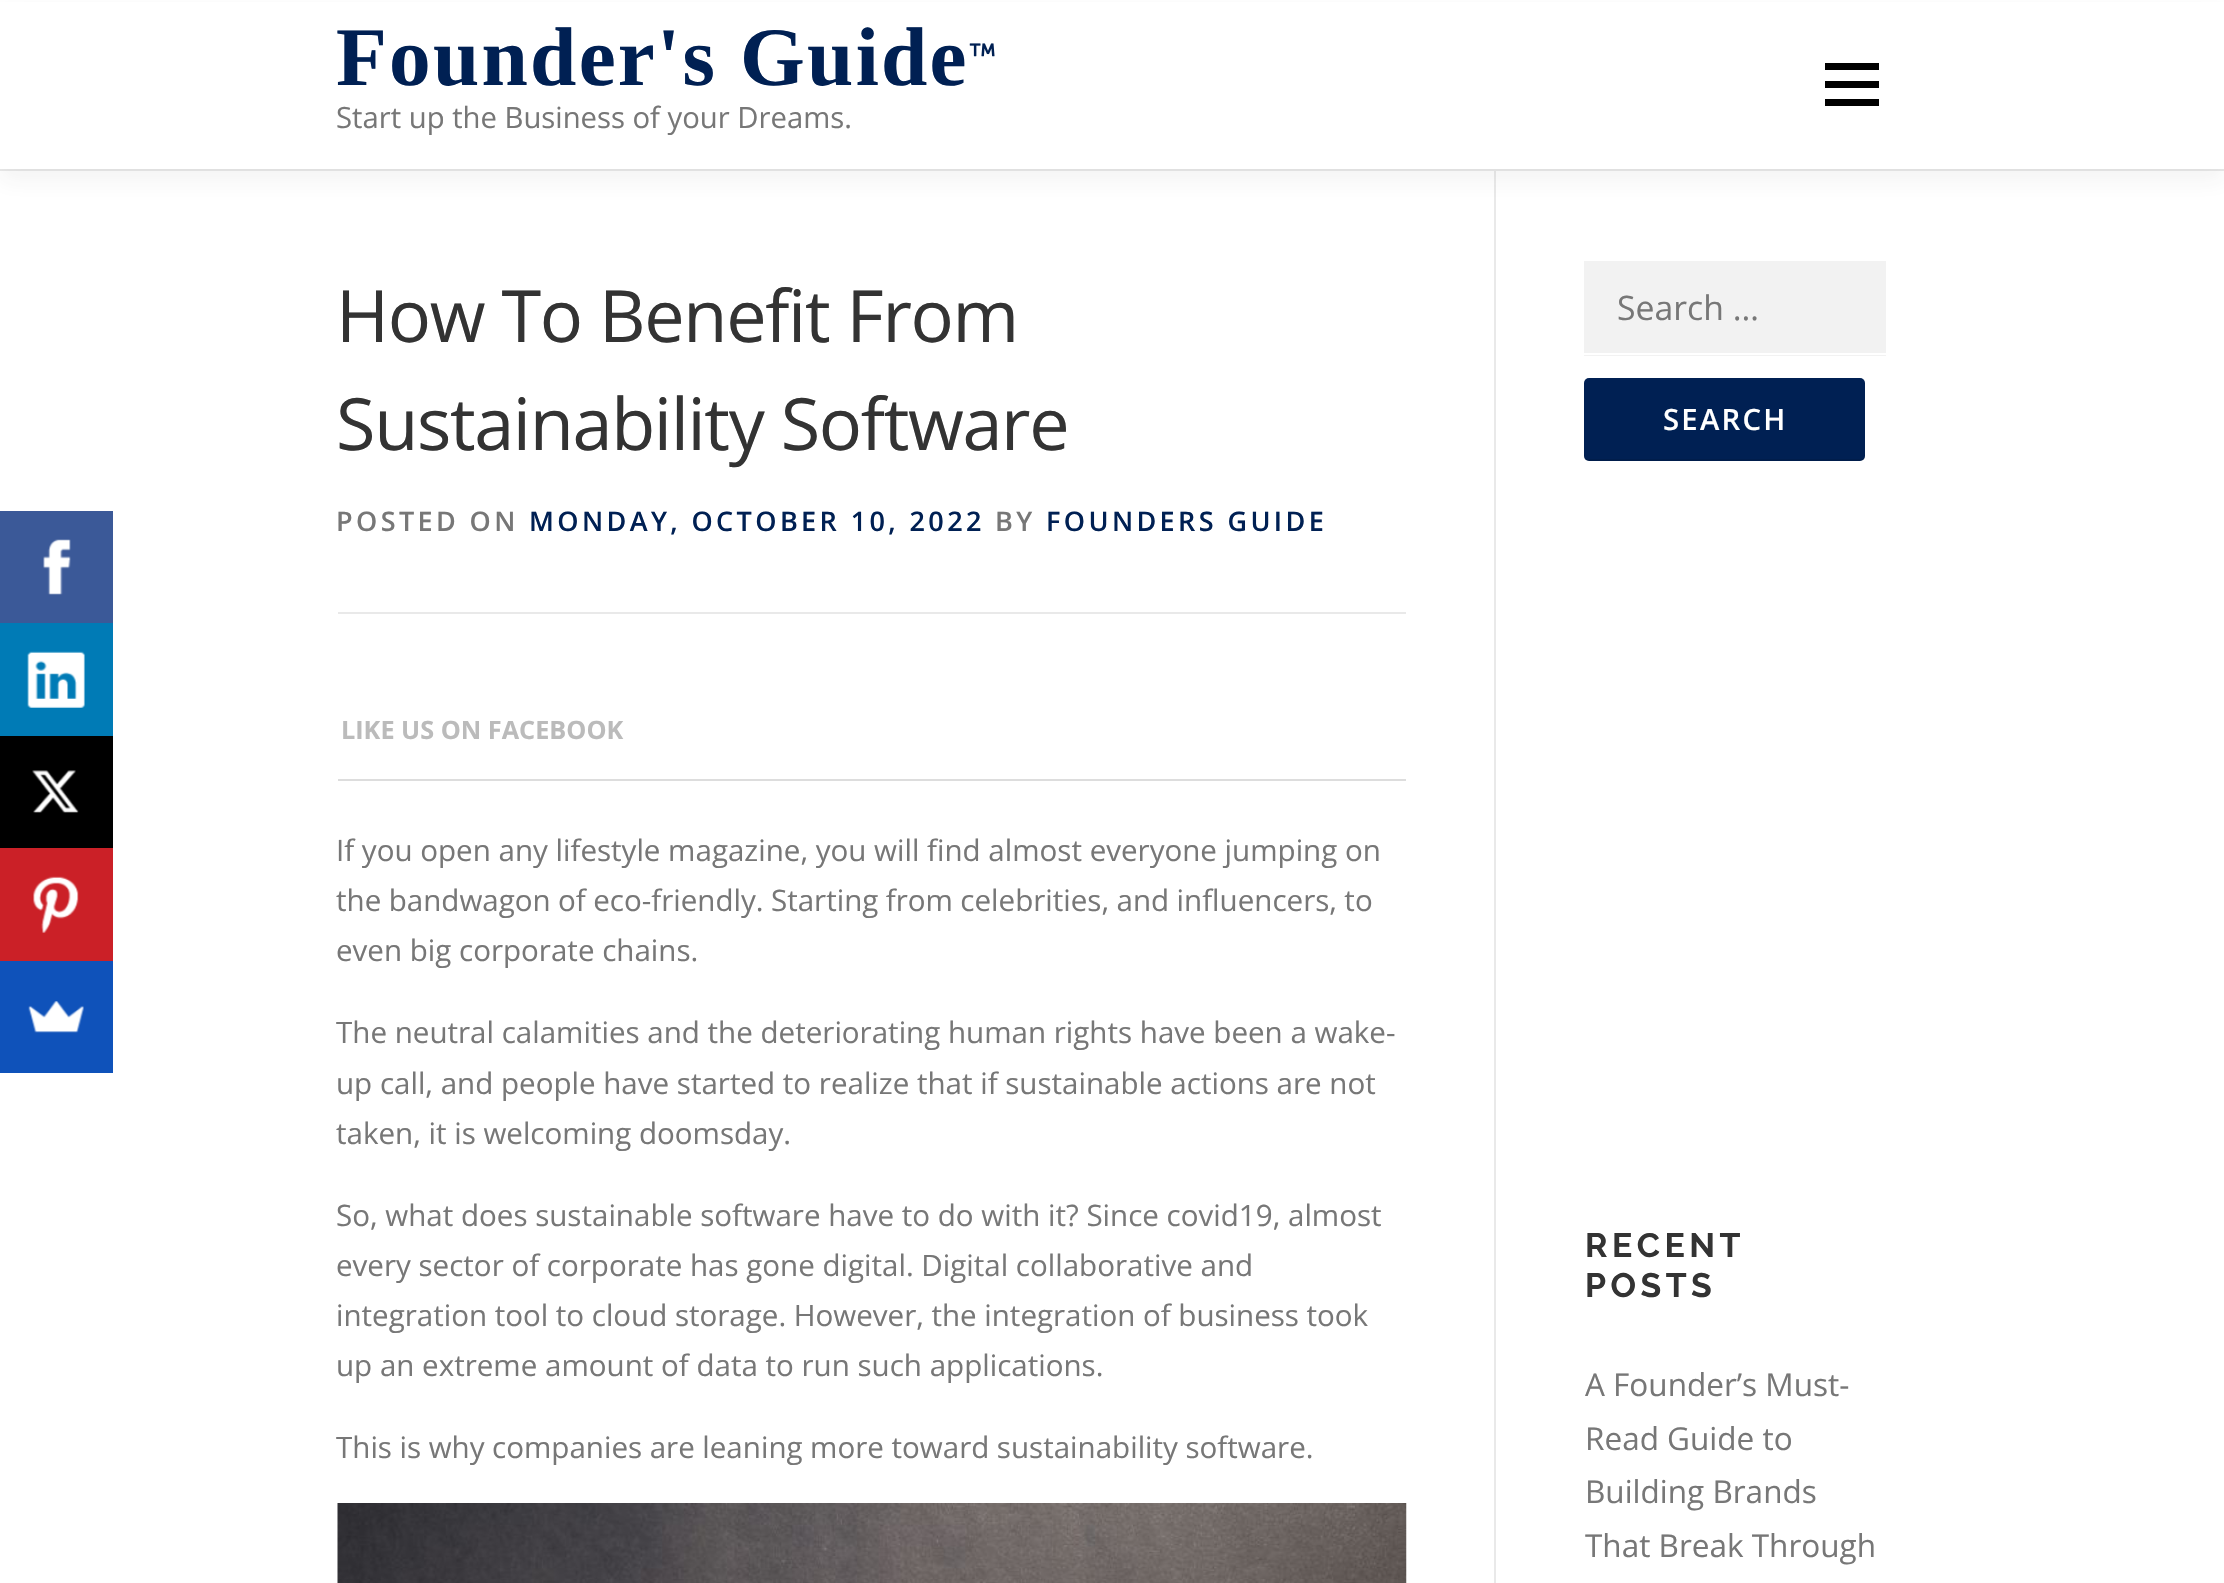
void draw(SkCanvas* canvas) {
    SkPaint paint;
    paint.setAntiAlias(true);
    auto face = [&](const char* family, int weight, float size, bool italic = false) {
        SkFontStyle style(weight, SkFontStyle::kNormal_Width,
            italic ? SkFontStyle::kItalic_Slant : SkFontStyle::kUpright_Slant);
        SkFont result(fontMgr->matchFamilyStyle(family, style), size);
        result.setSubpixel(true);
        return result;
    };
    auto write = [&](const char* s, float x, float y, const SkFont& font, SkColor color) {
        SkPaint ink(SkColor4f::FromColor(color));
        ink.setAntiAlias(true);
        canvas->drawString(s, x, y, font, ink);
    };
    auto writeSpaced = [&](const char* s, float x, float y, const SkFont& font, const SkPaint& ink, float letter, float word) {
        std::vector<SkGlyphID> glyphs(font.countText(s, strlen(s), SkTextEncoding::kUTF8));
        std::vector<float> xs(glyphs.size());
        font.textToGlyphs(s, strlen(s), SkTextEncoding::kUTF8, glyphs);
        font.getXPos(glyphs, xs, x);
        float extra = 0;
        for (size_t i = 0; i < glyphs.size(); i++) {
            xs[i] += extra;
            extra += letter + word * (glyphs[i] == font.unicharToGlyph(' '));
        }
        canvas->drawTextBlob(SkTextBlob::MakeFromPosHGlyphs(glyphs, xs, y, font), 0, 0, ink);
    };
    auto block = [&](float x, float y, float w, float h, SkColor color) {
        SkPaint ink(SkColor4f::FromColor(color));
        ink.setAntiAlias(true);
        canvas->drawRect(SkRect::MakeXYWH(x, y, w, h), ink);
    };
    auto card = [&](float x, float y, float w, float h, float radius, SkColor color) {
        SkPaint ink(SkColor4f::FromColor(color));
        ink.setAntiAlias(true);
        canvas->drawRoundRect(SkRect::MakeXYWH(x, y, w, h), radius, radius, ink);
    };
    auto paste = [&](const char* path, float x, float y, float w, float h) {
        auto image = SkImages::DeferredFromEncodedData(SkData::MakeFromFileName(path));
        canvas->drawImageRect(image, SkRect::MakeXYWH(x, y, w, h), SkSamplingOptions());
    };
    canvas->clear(SK_ColorWHITE);
    block(0, 511, 113, 112, SkColorSetRGB(59, 89, 152));
    paste("pic1.png", 43, 539, 28, 56);
    block(0, 623, 113, 113, SkColorSetRGB(0, 123, 182));
    paste("pic2.png", 27, 651, 58, 57);
    block(0, 736, 113, 112, SK_ColorBLACK);
    paste("pic3.png", 32, 770, 47, 43);
    block(0, 848, 113, 113, SkColorSetRGB(203, 32, 39));
    paste("pic4.png", 33, 876, 46, 57);
    block(0, 961, 113, 112, SkColorSetRGB(15, 82, 186));
    paste("pic5.png", 28, 1001, 56, 32);
    block(0, 169, 2224, 2, SkColorSetRGB(233, 233, 233));
    block(1494, 171, 2, 1412, SkColorSetRGB(233, 233, 233));
    paint.setColor(SkColorSetARGB(15, 50, 50, 50));
    paint.setMaskFilter(SkMaskFilter::MakeBlur(kNormal_SkBlurStyle, 11));
    canvas->drawRect(SkRect::MakeXYWH(0, 11, 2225, 169), paint);
    paint.setMaskFilter(nullptr);
    block(0, 2, 2224, 167, SK_ColorWHITE);
    auto kFont1 = face("Liberation Serif", 700, 83.25f);
    paint.setColor(SkColorSetRGB(0, 32, 83));
    writeSpaced("Founder's Guide", 336, 85, kFont1, paint, 2.25f, 0);
    paste("pic6.png", 969, 43, 26, 14);
    auto kFont2 = face("Open Sans", 400, 29.25f);
    write("Start up the Business of your Dreams.", 336, 128, kFont2, SkColorSetRGB(119, 119, 119));
    block(1825, 81, 54, 7, SK_ColorBLACK);
    block(1825, 63, 54, 7, SK_ColorBLACK);
    block(1825, 99, 54, 7, SK_ColorBLACK);
    auto kFont3 = face("Open Sans", 400, 72);
    paint.setColor(SkColorSetRGB(51, 51, 51));
    writeSpaced("How To Benefit From", 336, 342, kFont3, paint, -1.35f, 0);
    writeSpaced("Sustainability Software", 336, 450, kFont3, paint, -1.35f, 0);
    block(338, 612, 1068, 2, SkColorSetRGB(233, 233, 233));
    auto kFont4 = face("Open Sans", 600, 27);
    paint.setColor(SkColorSetRGB(119, 119, 119));
    writeSpaced("POSTED ON", 336, 531, kFont4, paint, 3.4f, 0);
    paint.setColor(SkColorSetRGB(0, 32, 83));
    writeSpaced("MONDAY, OCTOBER 10, 2022", 529, 531, kFont4, paint, 3.4f, 0);
    paint.setColor(SkColorSetRGB(119, 119, 119));
    writeSpaced("BY", 995, 531, kFont4, paint, 3.4f, 0);
    paint.setColor(SkColorSetRGB(0, 32, 83));
    writeSpaced("FOUNDERS GUIDE", 1046, 531, kFont4, paint, 3.4f, 0);
    block(338, 779, 1068, 2, SkColorSetRGB(221, 221, 221));
    auto kFont5 = face("Open Sans", 700, 25.25f);
    write("LIKE US ON FACEBOOK", 341, 739, kFont5, SkColorSetRGB(187, 187, 187));
    auto kFont6 = face("Open Sans", 400, 29.55f);
    write("If you open any lifestyle magazine, you will find almost everyone jumping on", 336, 861, kFont6, SkColorSetRGB(119, 119, 119));
    paint.setColor(SkColorSetRGB(119, 119, 119));
    writeSpaced("the bandwagon of eco-friendly. Starting from celebrities, and influencers, to", 336, 911, kFont6, paint, 0, -0.25f);
    write("even big corporate chains.", 336, 961, kFont6, SkColorSetRGB(119, 119, 119));
    write("The neutral calamities and the deteriorating human rights have been a wake-", 336, 1043, kFont6, SkColorSetRGB(119, 119, 119));
    write("up call, and people have started to realize that if sustainable actions are not", 336, 1094, kFont6, SkColorSetRGB(119, 119, 119));
    write("taken, it is welcoming doomsday.", 336, 1144, kFont6, SkColorSetRGB(119, 119, 119));
    write("So, what does sustainable software have to do with it? Since covid19, almost", 336, 1226, kFont6, SkColorSetRGB(119, 119, 119));
    write("every sector of corporate has gone digital. Digital collaborative and", 336, 1276, kFont6, SkColorSetRGB(119, 119, 119));
    writeSpaced("integration tool to cloud storage. However, the integration of business took", 336, 1326, kFont6, paint, 0, -0.1f);
    write("up an extreme amount of data to run such applications.", 336, 1376, kFont6, SkColorSetRGB(119, 119, 119));
    writeSpaced("This is why companies are leaning more toward sustainability software.", 336, 1458, kFont6, paint, 0, -0.1f);
    paste("pic7.png", 337, 1503, 1070, 80);
    block(1584, 261, 302, 95, SkColorSetRGB(242, 242, 242));
    block(1584, 353, 302, 2, SK_ColorWHITE);
    auto kFont7 = face("Open Sans", 400, 33.75f);
    write("Search …", 1617, 320, kFont7, SkColorSetRGB(119, 119, 119));
    card(1584, 378, 281, 83, 5, SkColorSetRGB(0, 32, 83));
    paint.setColor(SkColorSetARGB(26, 0, 0, 0));
    canvas->drawPath(SkPathBuilder().moveTo(1584, 454).lineTo(1584, 456).cubicTo(1584, 459, 1586, 461, 1589, 461).lineTo(1860, 461).cubicTo(1863, 461, 1865, 459, 1865, 456).lineTo(1865, 454).cubicTo(1865, 456, 1864, 459, 1861, 459).lineTo(1588, 459).lineTo(1585, 458).close().detach(), paint);
    auto kFont8 = face("Open Sans", 600, 29.25f);
    paint.setColor(SK_ColorWHITE);
    writeSpaced("SEARCH", 1663, 430, kFont8, paint, 2.25f, 0);
    auto kFont9 = face("Raleway", 700, 33.75f);
    paint.setColor(SkColorSetRGB(51, 51, 51));
    writeSpaced("RECENT", 1585, 1257, kFont9, paint, 4.5f, 0);
    writeSpaced("POSTS", 1585, 1297, kFont9, paint, 4.5f, 0);
    auto kFont10 = face("Open Sans", 400, 31.5f);
    write("A Founder’s Must-", 1585, 1396, kFont10, SkColorSetRGB(119, 119, 119));
    write("Read Guide to", 1585, 1450, kFont10, SkColorSetRGB(119, 119, 119));
    write("Building Brands", 1585, 1503, kFont10, SkColorSetRGB(119, 119, 119));
    write("That Break Through", 1585, 1557, kFont10, SkColorSetRGB(119, 119, 119));
}
